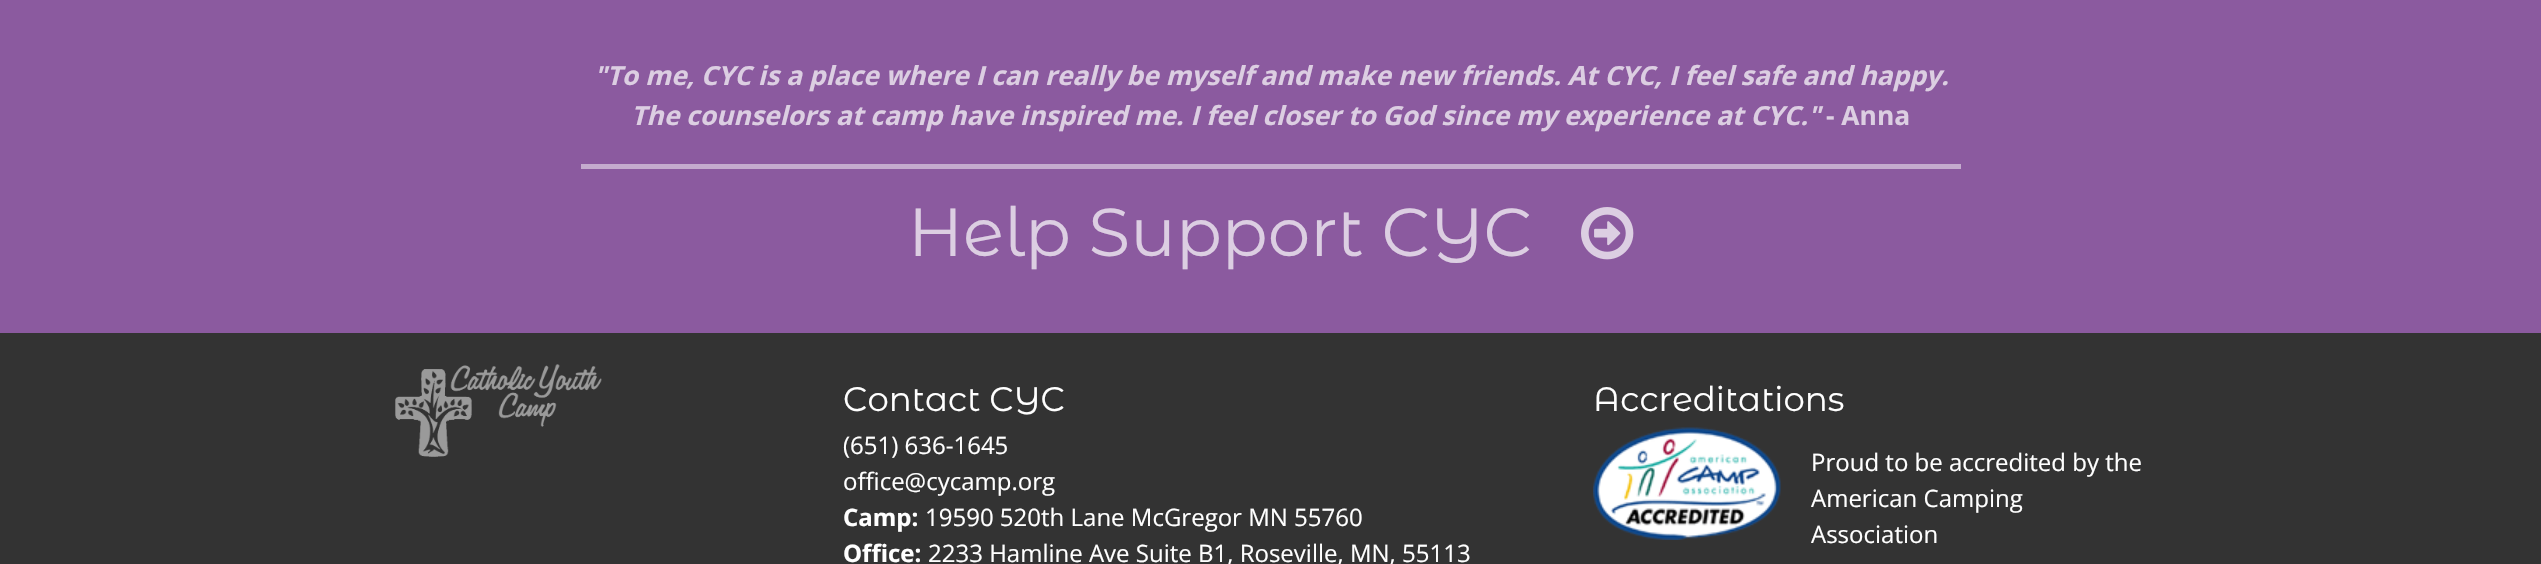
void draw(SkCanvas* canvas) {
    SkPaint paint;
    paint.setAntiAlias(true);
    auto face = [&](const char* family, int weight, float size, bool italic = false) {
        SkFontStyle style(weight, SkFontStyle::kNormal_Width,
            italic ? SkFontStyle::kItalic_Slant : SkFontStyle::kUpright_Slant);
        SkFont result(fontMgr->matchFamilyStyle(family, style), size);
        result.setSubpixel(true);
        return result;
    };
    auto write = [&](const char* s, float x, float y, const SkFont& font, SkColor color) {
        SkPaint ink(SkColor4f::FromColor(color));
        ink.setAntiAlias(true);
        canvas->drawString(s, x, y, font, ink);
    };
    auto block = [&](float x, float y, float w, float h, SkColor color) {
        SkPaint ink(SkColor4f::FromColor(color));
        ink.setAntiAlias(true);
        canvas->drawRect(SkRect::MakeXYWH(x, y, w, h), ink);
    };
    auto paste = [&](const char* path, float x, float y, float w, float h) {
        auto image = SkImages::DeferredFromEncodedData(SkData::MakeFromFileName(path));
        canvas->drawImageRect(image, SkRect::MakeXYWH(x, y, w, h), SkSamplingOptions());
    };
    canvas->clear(SkColorSetRGB(51, 51, 51));
    block(0, 0, 2541, 333, SkColorSetRGB(139, 90, 159));
    block(581, 164, 1380, 5, SkColorSetRGB(196, 171, 206));
    auto kFont1 = face("Open Sans", 700, 26.4f, true);
    write("\"To me, CYC is a place where I can really be myself and make new friends. At CYC, I feel safe and happy.", 594, 85, kFont1, SkColorSetRGB(220, 206, 226));
    write("The counselors at camp have inspired me. I feel closer to God since my experience at CYC.\"", 631, 125, kFont1, SkColorSetRGB(220, 206, 226));
    auto kFont2 = face("Open Sans", 700, 26.4f);
    write("- Anna", 1826, 125, kFont2, SkColorSetRGB(220, 206, 226));
    auto kFont3 = face("Montserrat Alternates", 400, 67.75f);
    write("Help Support CYC", 908, 256, kFont3, SkColorSetRGB(220, 206, 226));
    paste("pic1.png", 1581, 207, 53, 53);
    paste("pic2.png", 395, 364, 207, 93);
    auto kFont4 = face("Montserrat Alternates", 400, 34);
    write("Contact CYC", 843, 411, kFont4, SK_ColorWHITE);
    auto kFont5 = face("Open Sans", 400, 24);
    write("(651) 636-1645", 843, 454, kFont5, SK_ColorWHITE);
    write("office@cycamp.org", 843, 490, kFont5, SK_ColorWHITE);
    auto kFont6 = face("Open Sans", 700, 24);
    write("Camp:", 843, 526, kFont6, SK_ColorWHITE);
    write("19590 520th Lane McGregor MN 55760", 925, 526, kFont5, SK_ColorWHITE);
    write("Office:", 843, 562, kFont6, SK_ColorWHITE);
    write("2233 Hamline Ave Suite B1, Roseville, MN, 55113", 928, 562, kFont5, SK_ColorWHITE);
    write("Accreditations", 1593, 411, kFont4, SK_ColorWHITE);
    paste("pic3.png", 1593, 427, 188, 113);
    write("Proud to be accredited by the", 1811, 471, kFont5, SK_ColorWHITE);
    write("American Camping", 1811, 507, kFont5, SK_ColorWHITE);
    write("Association", 1811, 543, kFont5, SK_ColorWHITE);
}
